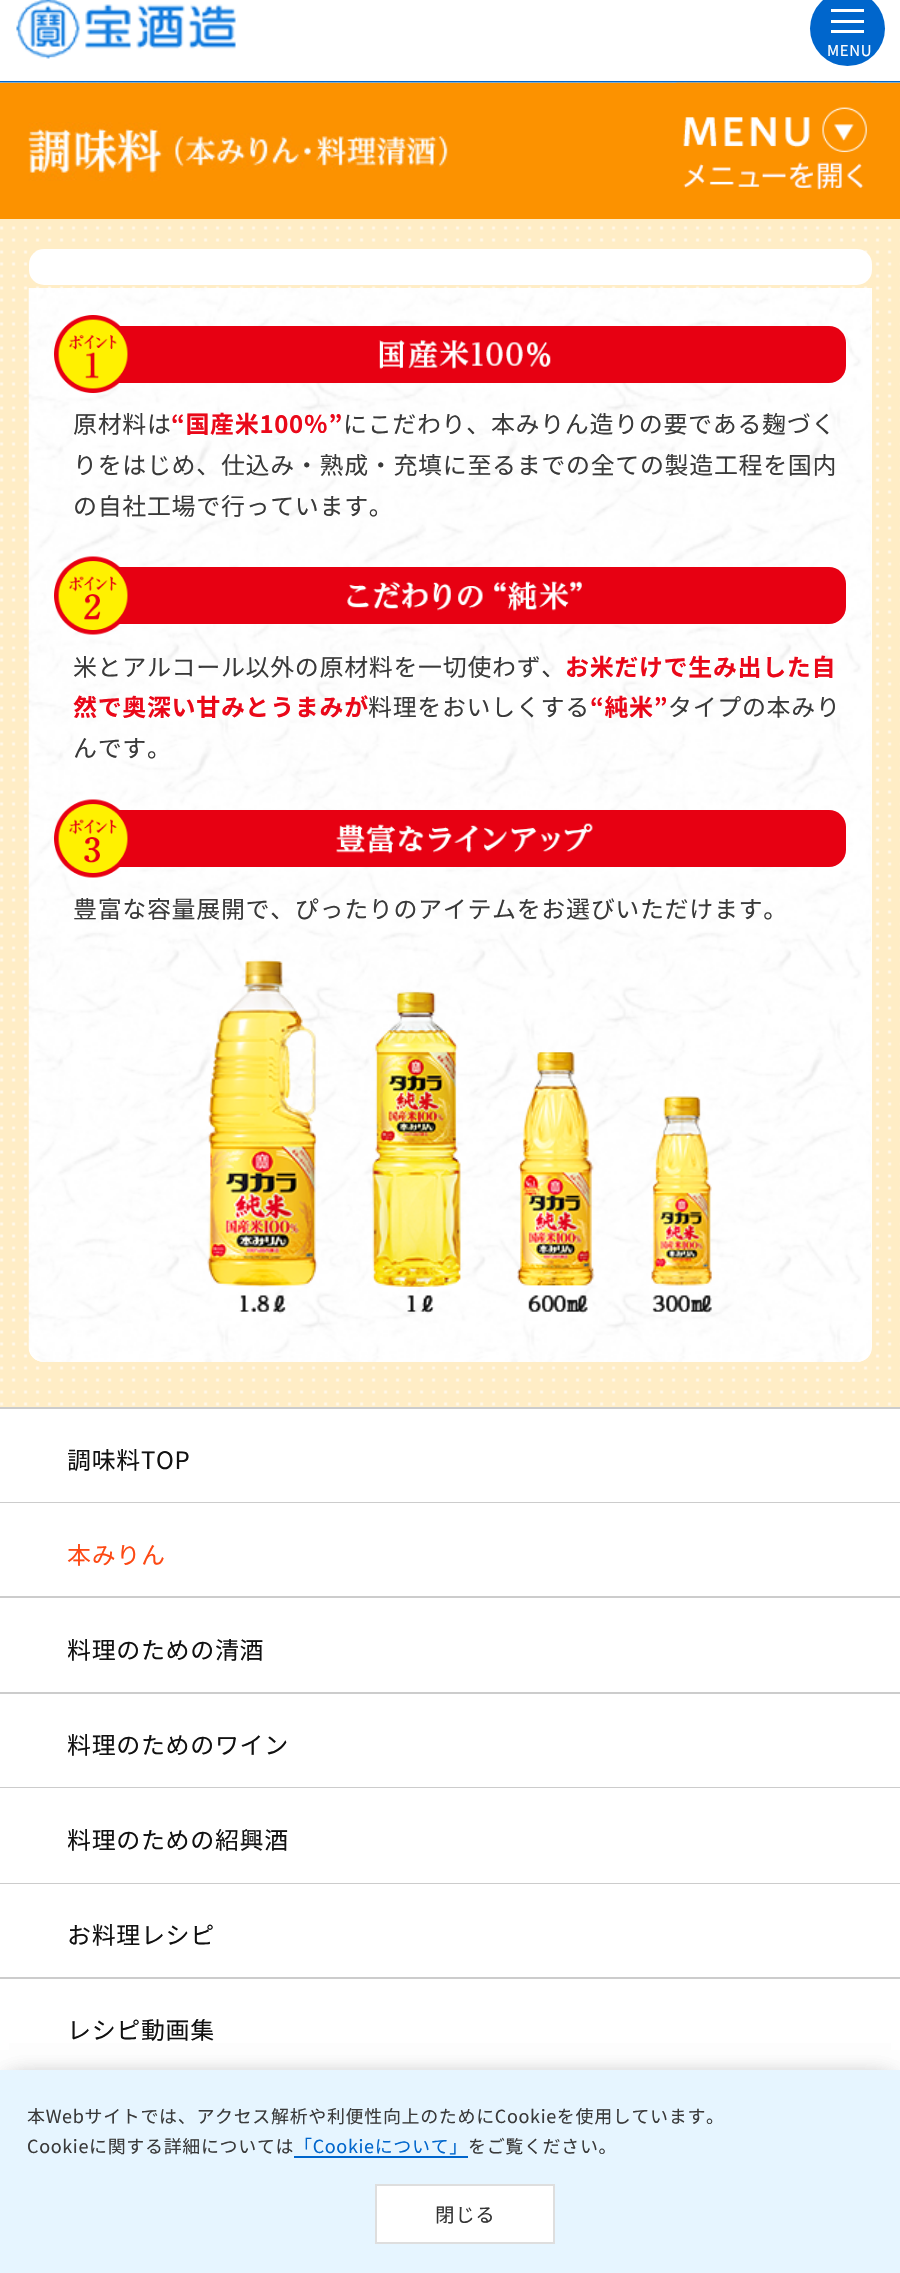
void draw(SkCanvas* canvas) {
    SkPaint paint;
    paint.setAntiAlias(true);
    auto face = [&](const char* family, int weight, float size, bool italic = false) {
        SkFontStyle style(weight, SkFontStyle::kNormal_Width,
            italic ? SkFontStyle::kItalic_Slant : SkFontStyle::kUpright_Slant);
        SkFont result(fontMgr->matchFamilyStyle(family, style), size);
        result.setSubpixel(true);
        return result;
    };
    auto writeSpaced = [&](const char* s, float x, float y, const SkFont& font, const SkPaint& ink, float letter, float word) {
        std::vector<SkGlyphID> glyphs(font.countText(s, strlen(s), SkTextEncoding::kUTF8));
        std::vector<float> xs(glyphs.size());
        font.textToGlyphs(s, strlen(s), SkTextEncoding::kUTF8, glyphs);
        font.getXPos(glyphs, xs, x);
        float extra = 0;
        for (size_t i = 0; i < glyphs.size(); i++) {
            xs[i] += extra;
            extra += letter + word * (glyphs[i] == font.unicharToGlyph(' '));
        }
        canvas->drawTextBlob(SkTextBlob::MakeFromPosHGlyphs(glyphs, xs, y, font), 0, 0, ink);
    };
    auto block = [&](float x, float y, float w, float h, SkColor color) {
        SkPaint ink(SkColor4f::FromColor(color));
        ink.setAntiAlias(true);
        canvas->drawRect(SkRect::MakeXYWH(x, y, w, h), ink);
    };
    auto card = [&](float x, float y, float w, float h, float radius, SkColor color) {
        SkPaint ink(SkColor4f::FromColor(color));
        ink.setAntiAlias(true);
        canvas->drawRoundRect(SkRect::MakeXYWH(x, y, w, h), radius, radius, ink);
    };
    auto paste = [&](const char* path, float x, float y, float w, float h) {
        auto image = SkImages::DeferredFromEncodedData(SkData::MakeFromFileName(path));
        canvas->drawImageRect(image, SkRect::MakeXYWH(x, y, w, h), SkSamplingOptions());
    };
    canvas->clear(SK_ColorWHITE);
    block(0, 81, 900, 2, SkColorSetRGB(0, 102, 204));
    paste("pic1.png", 16, 0, 220, 59);
    paint.setColor(SkColorSetRGB(0, 102, 204));
    canvas->drawCircle(847.5f, 28.5f, 37.5f, paint);
    block(831, 9, 33, 3, SK_ColorWHITE);
    block(831, 20, 33, 3, SK_ColorWHITE);
    block(831, 30, 33, 3, SK_ColorWHITE);
    auto kFont1 = face("Noto Sans JP", 400, 15);
    paint.setColor(SK_ColorWHITE);
    writeSpaced("MENU", 827, 56, kFont1, paint, 0.65f, 0);
    paste("pic2.png", 0, 82, 900, 1325);
    block(0, 83, 900, 136, SkColorSetRGB(252, 146, 0));
    paste("pic3.png", 28, 122, 420, 59);
    paste("pic4.png", 676, 82, 196, 108);
    card(29, 249, 843, 36, 15, SK_ColorWHITE);
    canvas->drawPath(SkPathBuilder().moveTo(29, 288).lineTo(872, 288).lineTo(872, 1347).cubicTo(872, 1355.5f, 865.5f, 1362, 857, 1362).lineTo(44, 1362).cubicTo(35.5f, 1362, 29, 1355.5f, 29, 1347).close().detach(), paint);
    paste("pic5.png", 28, 288, 843, 1074);
    card(69, 326, 777, 57, 17, SkColorSetRGB(231, 0, 18));
    paste("pic6.png", 54, 315, 74, 78);
    paste("pic7.png", 378, 340, 173, 29);
    auto kFont2 = face("Noto Sans JP", 400, 24);
    paint.setColor(SkColorSetRGB(58, 58, 58));
    writeSpaced("原材料は", 73, 433, kFont2, paint, 0.65f, 0);
    auto kFont3 = face("Noto Sans JP", 700, 24);
    paint.setColor(SkColorSetRGB(234, 8, 25));
    writeSpaced("“国産米100％”", 171, 433, kFont3, paint, 0.65f, 0);
    paint.setColor(SkColorSetRGB(58, 58, 58));
    writeSpaced("にこだわり、本みりん造りの要である麹づく", 343, 433, kFont2, paint, 0.65f, 0);
    writeSpaced("りをはじめ、仕込み・熟成・充填に至るまでの全ての製造工程を国内", 73, 474, kFont2, paint, 0.65f, 0);
    writeSpaced("の自社工場で行っています。", 73, 515, kFont2, paint, 0.65f, 0);
    card(69, 567, 777, 57, 17, SkColorSetRGB(231, 0, 18));
    paste("pic8.png", 54, 556, 74, 79);
    paste("pic9.png", 347, 581, 235, 30);
    writeSpaced("米とアルコール以外の原材料を一切使わず、", 73, 676, kFont2, paint, 0.65f, 0);
    paint.setColor(SkColorSetRGB(234, 8, 25));
    writeSpaced("お米だけで生み出した自", 565, 676, kFont3, paint, 0.65f, 0);
    writeSpaced("然で奥深い甘みとうまみが", 73, 716, kFont3, paint, 0.65f, 0);
    paint.setColor(SkColorSetRGB(58, 58, 58));
    writeSpaced("料理をおいしくする", 368, 716, kFont2, paint, 0.65f, 0);
    paint.setColor(SkColorSetRGB(234, 8, 25));
    writeSpaced("“純米”", 590, 716, kFont3, paint, 0.65f, 0);
    paint.setColor(SkColorSetRGB(58, 58, 58));
    writeSpaced("タイプの本みり", 668, 716, kFont2, paint, 0.65f, 0);
    writeSpaced("んです。", 73, 757, kFont2, paint, 0.65f, 0);
    card(69, 810, 777, 57, 17, SkColorSetRGB(231, 0, 18));
    paste("pic10.png", 54, 799, 74, 79);
    paste("pic11.png", 336, 823, 257, 31);
    writeSpaced("豊富な容量展開で、ぴったりのアイテムをお選びいただけます。", 73, 918, kFont2, paint, 0.65f, 0);
    paste("pic12.png", 207, 959, 505, 355);
    block(0, 1407, 900, 2, SkColorSetRGB(204, 204, 204));
    block(0, 1502, 900, 1, SkColorSetRGB(204, 204, 204));
    paint.setColor(SkColorSetRGB(17, 17, 17));
    writeSpaced("調味料TOP", 67, 1469, kFont2, paint, 0.65f, 0);
    block(0, 1596, 900, 2, SkColorSetRGB(204, 204, 204));
    paint.setColor(SkColorSetRGB(253, 73, 20));
    writeSpaced("本みりん", 67, 1564, kFont2, paint, 0.65f, 0);
    block(0, 1692, 900, 2, SkColorSetRGB(204, 204, 204));
    paint.setColor(SkColorSetRGB(17, 17, 17));
    writeSpaced("料理のための清酒", 67, 1659, kFont2, paint, 0.65f, 0);
    block(0, 1787, 900, 1, SkColorSetRGB(204, 204, 204));
    writeSpaced("料理のためのワイン", 67, 1754, kFont2, paint, 0.65f, 0);
    block(0, 1883, 900, 1, SkColorSetRGB(204, 204, 204));
    writeSpaced("料理のための紹興酒", 67, 1849, kFont2, paint, 0.65f, 0);
    block(0, 1977, 900, 2, SkColorSetRGB(204, 204, 204));
    writeSpaced("お料理レシピ", 67, 1944, kFont2, paint, 0.65f, 0);
    writeSpaced("レシピ動画集", 67, 2039, kFont2, paint, 0.65f, 0);
    paint.setColor(SkColorSetARGB(51, 0, 0, 0));
    paint.setMaskFilter(SkMaskFilter::MakeBlur(kNormal_SkBlurStyle, 12));
    canvas->drawRect(SkRect::MakeXYWH(9, 2079, 882, 186), paint);
    paint.setMaskFilter(nullptr);
    paint.setMaskFilter(SkMaskFilter::MakeBlur(kNormal_SkBlurStyle, 12));
    canvas->drawRect(SkRect::MakeXYWH(9, 2079, 882, 186), paint);
    paint.setMaskFilter(nullptr);
    block(0, 2070, 900, 203, SkColorSetRGB(230, 245, 255));
    auto kFont4 = face("Noto Sans JP", 400, 18);
    paint.setColor(SkColorSetRGB(58, 58, 58));
    writeSpaced("本Webサイトでは、アクセス解析や利便性向上のためにCookieを使用しています。", 27, 2123, kFont4, paint, 0.65f, 0);
    writeSpaced("Cookieに関する詳細については", 27, 2153, kFont4, paint, 0.65f, 0);
    paint.setColor(SkColorSetRGB(0, 102, 204));
    writeSpaced("「Cookieについて」", 294, 2153, kFont4, paint, 0.65f, 0);
    block(294, 2156, 174, 2, SkColorSetRGB(0, 102, 204));
    paint.setColor(SkColorSetRGB(58, 58, 58));
    writeSpaced("をご覧ください。", 468, 2153, kFont4, paint, 0.65f, 0);
    paint.setColor(SK_ColorWHITE);
    canvas->drawRect(SkRect::MakeXYWH(376, 2185, 178, 58), paint);
    paint.setStyle(SkPaint::kStroke_Style);
    paint.setStrokeWidth(2);
    paint.setColor(SkColorSetRGB(222, 222, 222));
    canvas->drawRect(SkRect::MakeXYWH(376, 2185, 178, 58), paint);
    auto kFont5 = face("Noto Sans JP", 400, 19.5f);
    paint.setStyle(SkPaint::kFill_Style);
    paint.setColor(SkColorSetRGB(51, 51, 51));
    writeSpaced("閉じる", 435, 2222, kFont5, paint, 0.65f, 0);
}
